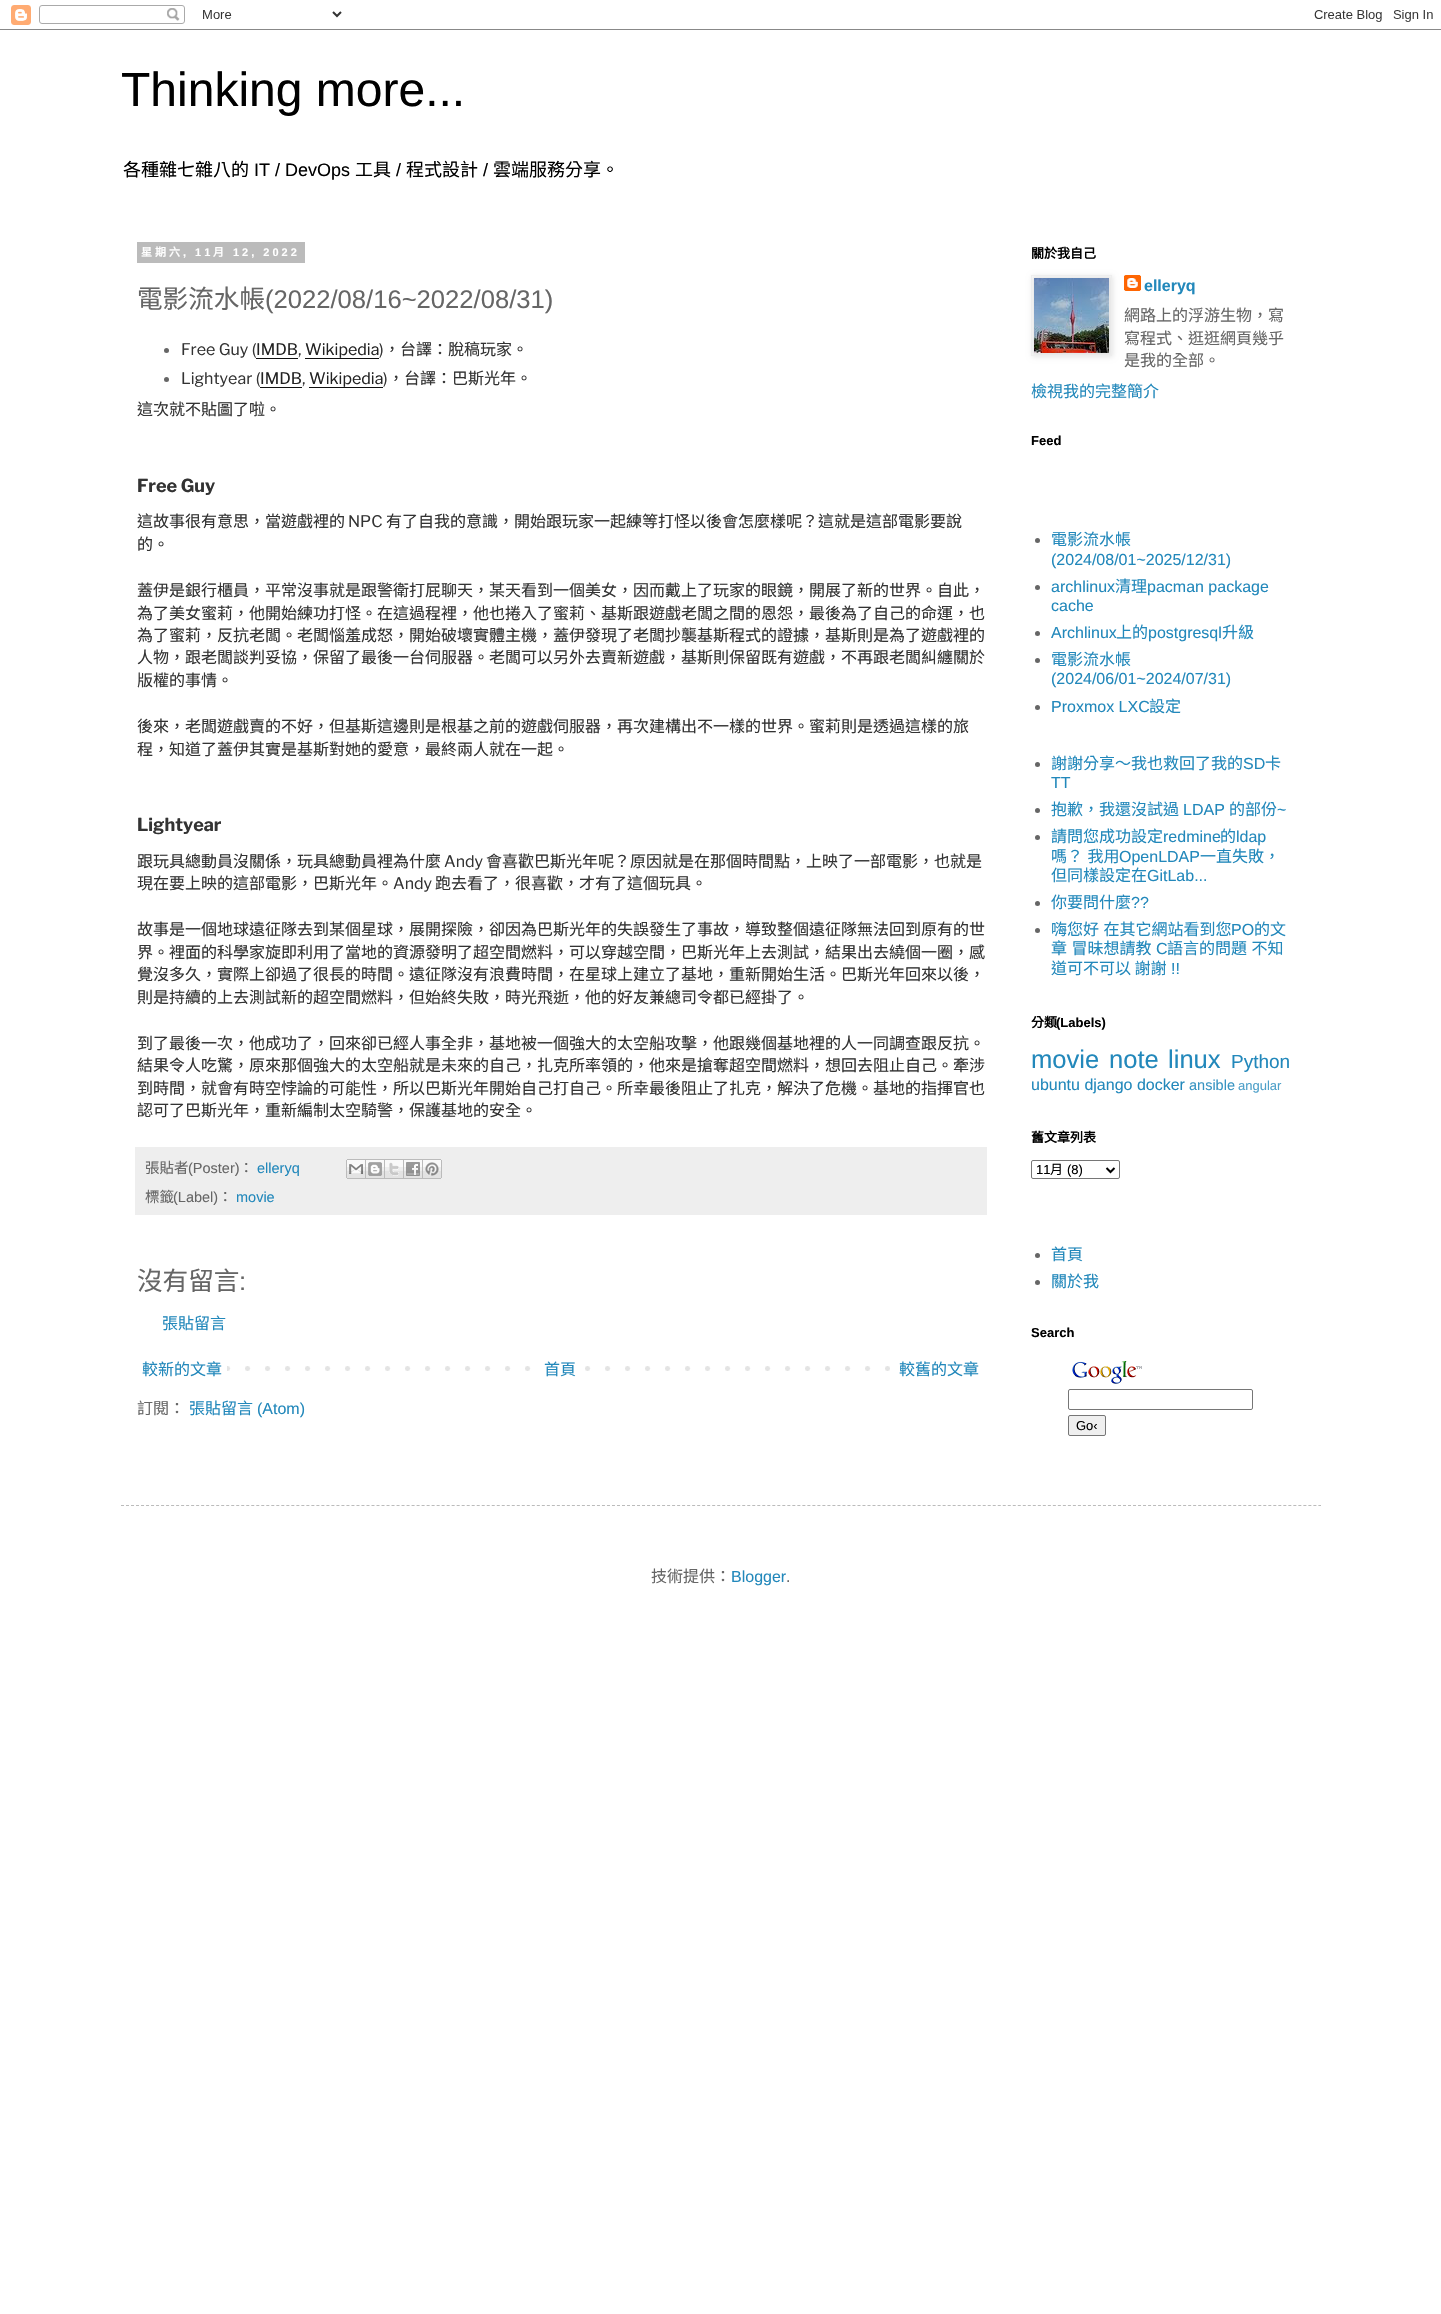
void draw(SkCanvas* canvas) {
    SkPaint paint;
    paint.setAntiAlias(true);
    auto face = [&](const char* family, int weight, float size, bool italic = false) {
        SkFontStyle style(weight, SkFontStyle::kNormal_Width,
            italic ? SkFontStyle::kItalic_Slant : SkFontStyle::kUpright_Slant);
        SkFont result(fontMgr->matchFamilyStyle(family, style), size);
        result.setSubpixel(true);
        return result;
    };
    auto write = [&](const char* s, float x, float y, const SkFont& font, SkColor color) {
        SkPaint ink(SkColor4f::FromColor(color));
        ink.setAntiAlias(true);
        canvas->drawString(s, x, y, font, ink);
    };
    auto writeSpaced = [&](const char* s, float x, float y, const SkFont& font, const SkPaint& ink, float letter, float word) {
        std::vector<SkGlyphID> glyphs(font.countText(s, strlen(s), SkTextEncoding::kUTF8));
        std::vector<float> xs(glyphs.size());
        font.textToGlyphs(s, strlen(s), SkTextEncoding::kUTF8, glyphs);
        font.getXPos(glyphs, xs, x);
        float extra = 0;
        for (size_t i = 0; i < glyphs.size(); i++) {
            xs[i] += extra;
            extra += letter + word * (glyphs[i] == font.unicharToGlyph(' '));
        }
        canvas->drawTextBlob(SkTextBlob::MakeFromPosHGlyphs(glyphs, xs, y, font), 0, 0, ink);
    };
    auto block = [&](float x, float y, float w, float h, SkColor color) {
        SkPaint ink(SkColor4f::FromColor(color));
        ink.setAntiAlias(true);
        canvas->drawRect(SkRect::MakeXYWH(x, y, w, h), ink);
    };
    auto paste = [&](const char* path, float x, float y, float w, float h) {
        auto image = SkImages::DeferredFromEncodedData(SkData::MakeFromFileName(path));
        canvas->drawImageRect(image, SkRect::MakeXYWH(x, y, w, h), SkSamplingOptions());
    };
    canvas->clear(SK_ColorWHITE);
    paste("pic1.png", 0, 5, 1441, 25);
    auto kFont1 = face("Liberation Sans", 400, 48);
    write("Thinking more...", 121, 106, kFont1, SK_ColorBLACK);
    auto kFont2 = face("Noto Sans CJK TC", 400, 18);
    write("各種雜七雜八的", 123, 176, kFont2, SK_ColorBLACK);
    auto kFont3 = face("Liberation Sans", 400, 18);
    write("IT / DevOps", 254, 176, kFont3, SK_ColorBLACK);
    write("工具", 355, 176, kFont2, SK_ColorBLACK);
    write("/", 396, 176, kFont3, SK_ColorBLACK);
    write("程式設計", 406, 176, kFont2, SK_ColorBLACK);
    write("/", 483, 176, kFont3, SK_ColorBLACK);
    write("雲端服務分享。", 493, 176, kFont2, SK_ColorBLACK);
    block(137, 242, 168, 21, SkColorSetRGB(187, 187, 187));
    auto kFont4 = face("Noto Sans CJK TC", 700, 11);
    paint.setColor(SK_ColorWHITE);
    writeSpaced("星期六", 141, 256, kFont4, paint, 3, 0);
    auto kFont5 = face("Liberation Sans", 700, 11);
    writeSpaced(", 11", 183, 256, kFont5, paint, 3, 0);
    writeSpaced("月", 213, 256, kFont4, paint, 3, 0);
    writeSpaced("12, 2022", 233, 256, kFont5, paint, 3, 0);
    auto kFont6 = face("Noto Sans CJK TC", 400, 25.6f);
    write("電影流水帳", 137, 308, kFont6, SkColorSetRGB(102, 102, 102));
    auto kFont7 = face("Liberation Sans", 400, 25.6f);
    write("(2022/08/16~2022/08/31)", 265, 308, kFont7, SkColorSetRGB(102, 102, 102));
    paint.setColor(SkColorSetRGB(102, 102, 102));
    canvas->drawCircle(166.5f, 350.5f, 2.5f, paint);
    auto kFont8 = face("Libre Franklin", 400, 16);
    write("Free Guy (", 181, 355, kFont8, SkColorSetRGB(51, 51, 51));
    write("IMDB", 256, 355, kFont8, SkColorSetRGB(34, 34, 34));
    block(256, 358, 42, 1, SkColorSetRGB(15, 15, 15));
    write("Wikipedia", 305, 355, kFont8, SkColorSetRGB(34, 34, 34));
    block(305, 358, 74, 1, SkColorSetRGB(15, 15, 15));
    write(")", 379, 355, kFont8, SkColorSetRGB(51, 51, 51));
    auto kFont9 = face("Noto Sans CJK TC", 400, 16);
    write("，台譯：脫稿玩家。", 384, 355, kFont9, SkColorSetRGB(51, 51, 51));
    write(",", 298, 355, kFont8, SkColorSetRGB(51, 51, 51));
    canvas->drawCircle(166.5f, 379.5f, 2.5f, paint);
    write("Lightyear (", 181, 384, kFont8, SkColorSetRGB(51, 51, 51));
    write("IMDB", 260, 384, kFont8, SkColorSetRGB(34, 34, 34));
    block(260, 387, 42, 1, SkColorSetRGB(15, 15, 15));
    write("Wikipedia", 309, 384, kFont8, SkColorSetRGB(34, 34, 34));
    block(309, 387, 74, 1, SkColorSetRGB(15, 15, 15));
    write(")", 383, 384, kFont8, SkColorSetRGB(51, 51, 51));
    write("，台譯：巴斯光年。", 388, 384, kFont9, SkColorSetRGB(51, 51, 51));
    write(",", 302, 384, kFont8, SkColorSetRGB(51, 51, 51));
    write("這次就不貼圖了啦。", 137, 415, kFont9, SkColorSetRGB(51, 51, 51));
    auto kFont10 = face("Libre Franklin", 700, 18);
    write("Free Guy", 137, 492, kFont10, SkColorSetRGB(51, 51, 51));
    write("這故事很有意思，當遊戲裡的", 137, 527, kFont9, SkColorSetRGB(51, 51, 51));
    write("NPC", 348, 527, kFont8, SkColorSetRGB(51, 51, 51));
    write("有了自我的意識，開始跟玩家一起練等打怪以後會怎麼樣呢？這就是這部電影要說", 386, 527, kFont9, SkColorSetRGB(51, 51, 51));
    write("的。", 137, 550, kFont9, SkColorSetRGB(51, 51, 51));
    write("蓋伊是銀行櫃員，平常沒事就是跟警衛打屁聊天，某天看到一個美女，因而戴上了玩家的眼鏡，開展了新的世界。自此，", 137, 596, kFont9, SkColorSetRGB(51, 51, 51));
    write("為了美女蜜莉，他開始練功打怪。在這過程裡，他也捲入了蜜莉、基斯跟遊戲老闆之間的恩怨，最後為了自己的命運，也", 137, 619, kFont9, SkColorSetRGB(51, 51, 51));
    write("為了蜜莉，反抗老闆。老闆惱羞成怒，開始破壞實體主機，蓋伊發現了老闆抄襲基斯程式的證據，基斯則是為了遊戲裡的", 137, 641, kFont9, SkColorSetRGB(51, 51, 51));
    write("人物，跟老闆談判妥協，保留了最後一台伺服器。老闆可以另外去賣新遊戲，基斯則保留既有遊戲，不再跟老闆糾纏關於", 137, 663, kFont9, SkColorSetRGB(51, 51, 51));
    write("版權的事情。", 137, 686, kFont9, SkColorSetRGB(51, 51, 51));
    write("後來，老闆遊戲賣的不好，但基斯這邊則是根基之前的遊戲伺服器，再次建構出不一樣的世界。蜜莉則是透過這樣的旅", 137, 732, kFont9, SkColorSetRGB(51, 51, 51));
    write("程，知道了蓋伊其實是基斯對她的愛意，最終兩人就在一起。", 137, 755, kFont9, SkColorSetRGB(51, 51, 51));
    write("Lightyear", 137, 831, kFont10, SkColorSetRGB(51, 51, 51));
    write("跟玩具總動員沒關係，玩具總動員裡為什麼", 137, 867, kFont9, SkColorSetRGB(51, 51, 51));
    write("Andy", 444, 867, kFont8, SkColorSetRGB(51, 51, 51));
    write("會喜歡巴斯光年呢？原因就是在那個時間點，上映了一部電影，也就是", 486, 867, kFont9, SkColorSetRGB(51, 51, 51));
    write("現在要上映的這部電影，巴斯光年。", 137, 889, kFont9, SkColorSetRGB(51, 51, 51));
    write("Andy", 393, 889, kFont8, SkColorSetRGB(51, 51, 51));
    write("跑去看了，很喜歡，才有了這個玩具。", 435, 889, kFont9, SkColorSetRGB(51, 51, 51));
    write("故事是一個地球遠征隊去到某個星球，展開探險，卻因為巴斯光年的失誤發生了事故，導致整個遠征隊無法回到原有的世", 137, 935, kFont9, SkColorSetRGB(51, 51, 51));
    write("界。裡面的科學家旋即利用了當地的資源發明了超空間燃料，可以穿越空間，巴斯光年上去測試，結果出去繞個一圈，感", 137, 958, kFont9, SkColorSetRGB(51, 51, 51));
    write("覺沒多久，實際上卻過了很長的時間。遠征隊沒有浪費時間，在星球上建立了基地，重新開始生活。巴斯光年回來以後，", 137, 980, kFont9, SkColorSetRGB(51, 51, 51));
    write("則是持續的上去測試新的超空間燃料，但始終失敗，時光飛逝，他的好友兼總司令都已經掛了。", 137, 1003, kFont9, SkColorSetRGB(51, 51, 51));
    write("到了最後一次，他成功了，回來卻已經人事全非，基地被一個強大的太空船攻擊，他跟幾個基地裡的人一同調查跟反抗。", 137, 1049, kFont9, SkColorSetRGB(51, 51, 51));
    write("結果令人吃驚，原來那個強大的太空船就是未來的自己，扎克所率領的，他來是搶奪超空間燃料，想回去阻止自己。牽涉", 137, 1071, kFont9, SkColorSetRGB(51, 51, 51));
    write("到時間，就會有時空悖論的可能性，所以巴斯光年開始自己打自己。所幸最後阻止了扎克，解決了危機。基地的指揮官也", 137, 1094, kFont9, SkColorSetRGB(51, 51, 51));
    write("認可了巴斯光年，重新編制太空騎警，保護基地的安全。", 137, 1116, kFont9, SkColorSetRGB(51, 51, 51));
    block(135, 1147, 852, 68, SkColorSetRGB(238, 238, 238));
    auto kFont11 = face("Noto Sans CJK TC", 400, 14.5f);
    write("張貼者", 145, 1173, kFont11, SkColorSetRGB(102, 102, 102));
    auto kFont12 = face("Liberation Sans", 400, 14.5f);
    write("(Poster)", 188, 1173, kFont12, SkColorSetRGB(102, 102, 102));
    write("：", 239, 1173, kFont11, SkColorSetRGB(102, 102, 102));
    write("elleryq", 257, 1173, kFont12, SkColorSetRGB(34, 136, 187));
    paste("pic2.png", 346, 1159, 20, 20);
    paste("pic3.png", 366, 1159, 19, 20);
    paste("pic4.png", 385, 1159, 19, 20);
    paste("pic5.png", 404, 1159, 19, 20);
    paste("pic6.png", 423, 1159, 19, 20);
    write("標籤", 145, 1202, kFont11, SkColorSetRGB(102, 102, 102));
    write("(Label)", 173, 1202, kFont12, SkColorSetRGB(102, 102, 102));
    write("：", 218, 1202, kFont11, SkColorSetRGB(102, 102, 102));
    write("movie", 236, 1202, kFont12, SkColorSetRGB(34, 136, 187));
    write("沒有留言", 137, 1290, kFont6, SkColorSetRGB(102, 102, 102));
    write(":", 239, 1290, kFont7, SkColorSetRGB(102, 102, 102));
    write("張貼留言", 162, 1329, kFont9, SkColorSetRGB(34, 136, 187));
    paste("pic7.png", 227, 1366, 663, 5);
    write("較新的文章", 142, 1375, kFont9, SkColorSetRGB(34, 136, 187));
    block(545, 1366, 26, 5, SK_ColorWHITE);
    write("首頁", 544, 1375, kFont9, SkColorSetRGB(34, 136, 187));
    write("較舊的文章", 899, 1375, kFont9, SkColorSetRGB(34, 136, 187));
    write("訂閱：", 137, 1414, kFont9, SkColorSetRGB(102, 102, 102));
    write("張貼留言", 189, 1414, kFont9, SkColorSetRGB(34, 136, 187));
    auto kFont13 = face("Liberation Sans", 400, 16);
    write("(Atom)", 257, 1414, kFont13, SkColorSetRGB(34, 136, 187));
    auto kFont14 = face("Noto Sans CJK TC", 700, 13);
    write("關於我自己", 1031, 258, kFont14, SK_ColorBLACK);
    paint.setColor(SkColorSetARGB(26, 0, 0, 0));
    paint.setMaskFilter(SkMaskFilter::MakeBlur(kNormal_SkBlurStyle, 2.5f));
    canvas->drawRect(SkRect::MakeXYWH(1032, 276, 81, 81), paint);
    paint.setMaskFilter(nullptr);
    paint.setStyle(SkPaint::kStroke_Style);
    paint.setStrokeWidth(1);
    paint.setColor(SkColorSetRGB(238, 238, 238));
    canvas->drawRect(SkRect::MakeXYWH(1031.5f, 275.5f, 80, 80), paint);
    paste("pic8.png", 1034, 278, 75, 75);
    paste("pic9.png", 1124, 275, 17, 16);
    auto kFont15 = face("Liberation Sans", 700, 16);
    write("elleryq", 1144, 291, kFont15, SkColorSetRGB(34, 136, 187));
    write("網路上的浮游生物，寫", 1124, 321, kFont9, SkColorSetRGB(102, 102, 102));
    write("寫程式、逛逛網頁幾乎", 1124, 344, kFont9, SkColorSetRGB(102, 102, 102));
    write("是我的全部。", 1124, 366, kFont9, SkColorSetRGB(102, 102, 102));
    write("檢視我的完整簡介", 1031, 397, kFont9, SkColorSetRGB(34, 136, 187));
    auto kFont16 = face("Liberation Sans", 700, 13);
    write("Feed", 1031, 445, kFont16, SK_ColorBLACK);
    paint.setStyle(SkPaint::kFill_Style);
    paint.setColor(SkColorSetRGB(102, 102, 102));
    canvas->drawCircle(1037.5f, 540.5f, 2.5f, paint);
    write("電影流水帳", 1051, 545, kFont9, SkColorSetRGB(34, 136, 187));
    write("(2024/08/01~2025/12/31)", 1051, 565, kFont13, SkColorSetRGB(34, 136, 187));
    canvas->drawCircle(1037.5f, 587.5f, 2.5f, paint);
    write("archlinux", 1051, 592, kFont13, SkColorSetRGB(34, 136, 187));
    write("清理", 1115, 592, kFont9, SkColorSetRGB(34, 136, 187));
    write("pacman package", 1147, 592, kFont13, SkColorSetRGB(34, 136, 187));
    write("cache", 1051, 611, kFont13, SkColorSetRGB(34, 136, 187));
    canvas->drawCircle(1037.5f, 633.5f, 2.5f, paint);
    write("Archlinux", 1051, 638, kFont13, SkColorSetRGB(34, 136, 187));
    write("上的", 1116, 638, kFont9, SkColorSetRGB(34, 136, 187));
    write("postgresql", 1148, 638, kFont13, SkColorSetRGB(34, 136, 187));
    write("升級", 1222, 638, kFont9, SkColorSetRGB(34, 136, 187));
    canvas->drawCircle(1037.5f, 660.5f, 2.5f, paint);
    write("電影流水帳", 1051, 665, kFont9, SkColorSetRGB(34, 136, 187));
    write("(2024/06/01~2024/07/31)", 1051, 684, kFont13, SkColorSetRGB(34, 136, 187));
    canvas->drawCircle(1037.5f, 707.5f, 2.5f, paint);
    write("Proxmox LXC", 1051, 712, kFont13, SkColorSetRGB(34, 136, 187));
    write("設定", 1149, 712, kFont9, SkColorSetRGB(34, 136, 187));
    canvas->drawCircle(1037.5f, 764.5f, 2.5f, paint);
    write("謝謝分享～我也救回了我的", 1051, 769, kFont9, SkColorSetRGB(34, 136, 187));
    write("SD", 1243, 769, kFont13, SkColorSetRGB(34, 136, 187));
    write("卡", 1265, 769, kFont9, SkColorSetRGB(34, 136, 187));
    write("TT", 1051, 788, kFont13, SkColorSetRGB(34, 136, 187));
    canvas->drawCircle(1037.5f, 810.5f, 2.5f, paint);
    write("抱歉，我還沒試過", 1051, 815, kFont9, SkColorSetRGB(34, 136, 187));
    write("LDAP", 1183, 815, kFont13, SkColorSetRGB(34, 136, 187));
    write("的部份", 1229, 815, kFont9, SkColorSetRGB(34, 136, 187));
    write("~", 1277, 815, kFont13, SkColorSetRGB(34, 136, 187));
    canvas->drawCircle(1037.5f, 837.5f, 2.5f, paint);
    write("請問您成功設定", 1051, 842, kFont9, SkColorSetRGB(34, 136, 187));
    write("redmine", 1163, 842, kFont13, SkColorSetRGB(34, 136, 187));
    write("的", 1220, 842, kFont9, SkColorSetRGB(34, 136, 187));
    write("ldap", 1236, 842, kFont13, SkColorSetRGB(34, 136, 187));
    paint.setColor(SkColorSetRGB(34, 136, 187));
    writeSpaced("嗎？ 我用", 1051, 862, kFont9, paint, 0, 1);
    write("OpenLDAP", 1119, 862, kFont13, SkColorSetRGB(34, 136, 187));
    write("一直失敗，", 1200, 862, kFont9, SkColorSetRGB(34, 136, 187));
    write("但同樣設定在", 1051, 881, kFont9, SkColorSetRGB(34, 136, 187));
    write("GitLab...", 1147, 881, kFont13, SkColorSetRGB(34, 136, 187));
    paint.setColor(SkColorSetRGB(102, 102, 102));
    canvas->drawCircle(1037.5f, 903.5f, 2.5f, paint);
    write("你要問什麼", 1051, 908, kFont9, SkColorSetRGB(34, 136, 187));
    write("?\077", 1131, 908, kFont13, SkColorSetRGB(34, 136, 187));
    canvas->drawCircle(1037.5f, 930.5f, 2.5f, paint);
    paint.setColor(SkColorSetRGB(34, 136, 187));
    writeSpaced("嗨您好 在其它網站看到您", 1051, 935, kFont9, paint, 0, 1);
    write("PO", 1231, 935, kFont13, SkColorSetRGB(34, 136, 187));
    write("的文", 1254, 935, kFont9, SkColorSetRGB(34, 136, 187));
    writeSpaced("章 冒昧想請教", 1051, 954, kFont9, paint, 0, 1);
    write("C", 1156, 954, kFont13, SkColorSetRGB(34, 136, 187));
    writeSpaced("語言的問題 不知", 1167, 954, kFont9, paint, 0, 1);
    write("道可不可以 謝謝", 1051, 974, kFont9, SkColorSetRGB(34, 136, 187));
    write("!!", 1171, 974, kFont13, SkColorSetRGB(34, 136, 187));
    write("分類", 1031, 1027, kFont14, SK_ColorBLACK);
    write("(Labels)", 1056, 1027, kFont16, SK_ColorBLACK);
    write("movie", 1031, 1068, kFont7, SkColorSetRGB(34, 136, 187));
    write("note", 1109, 1068, kFont7, SkColorSetRGB(34, 136, 187));
    write("linux", 1168, 1068, kFont7, SkColorSetRGB(34, 136, 187));
    auto kFont17 = face("Liberation Sans", 400, 19);
    write("Python", 1231, 1068, kFont17, SkColorSetRGB(34, 136, 187));
    write("ubuntu django docker", 1031, 1090, kFont13, SkColorSetRGB(34, 136, 187));
    write("ansible", 1189, 1090, kFont12, SkColorSetRGB(56, 148, 194));
    auto kFont18 = face("Liberation Sans", 400, 13);
    write("angular", 1238, 1090, kFont18, SkColorSetRGB(78, 160, 201));
    write("舊文章列表", 1031, 1142, kFont14, SK_ColorBLACK);
    paint.setStyle(SkPaint::kStroke_Style);
    paint.setColor(SkColorSetRGB(118, 118, 118));
    canvas->drawRoundRect(SkRect::MakeXYWH(1031.5f, 1160.5f, 88, 18), 1.5f, 1.5f, paint);
    paint.setStrokeWidth(2);
    paint.setColor(SK_ColorBLACK);
    canvas->drawPath(SkPathBuilder().moveTo(1106.5f, 1168).lineTo(1110.5f, 1172).lineTo(1114.5f, 1168).detach(), paint);
    write("11", 1036, 1174, kFont18, SK_ColorBLACK);
    auto kFont19 = face("Noto Sans CJK TC", 400, 13);
    write("月", 1050, 1174, kFont19, SK_ColorBLACK);
    write("(8)", 1067, 1174, kFont18, SK_ColorBLACK);
    paint.setStyle(SkPaint::kFill_Style);
    paint.setColor(SkColorSetRGB(102, 102, 102));
    canvas->drawCircle(1037.5f, 1255.5f, 2.5f, paint);
    write("首頁", 1051, 1260, kFont9, SkColorSetRGB(34, 136, 187));
    canvas->drawCircle(1037.5f, 1282.5f, 2.5f, paint);
    write("關於我", 1051, 1287, kFont9, SkColorSetRGB(34, 136, 187));
    write("Search", 1031, 1337, kFont16, SK_ColorBLACK);
    paste("pic10.png", 1072, 1361, 70, 23);
    paint.setStyle(SkPaint::kStroke_Style);
    paint.setStrokeWidth(1);
    paint.setColor(SkColorSetRGB(118, 118, 118));
    canvas->drawRoundRect(SkRect::MakeXYWH(1068.5f, 1389.5f, 184, 20), 1.5f, 1.5f, paint);
    paint.setStyle(SkPaint::kFill_Style);
    paint.setColor(SkColorSetRGB(239, 239, 239));
    canvas->drawRoundRect(SkRect::MakeXYWH(1068.5f, 1415.5f, 37, 20), 1.5f, 1.5f, paint);
    paint.setStyle(SkPaint::kStroke_Style);
    paint.setColor(SkColorSetRGB(118, 118, 118));
    canvas->drawRoundRect(SkRect::MakeXYWH(1068.5f, 1415.5f, 37, 20), 1.5f, 1.5f, paint);
    write("Go‹", 1076, 1430, kFont18, SK_ColorBLACK);
    paint.setColor(SkColorSetRGB(187, 187, 187));
    paint.setPathEffect(SkDashPathEffect::Make({{3, 2.01f}}, 0));
    canvas->drawPath(SkPathBuilder().moveTo(121, 1505.5f).lineTo(1321, 1505.5f).detach(), paint);
    paint.setPathEffect(nullptr);
    write("技術提供：", 651, 1582, kFont9, SkColorSetRGB(102, 102, 102));
    write("Blogger", 731, 1582, kFont13, SkColorSetRGB(34, 136, 187));
    write(".", 786, 1582, kFont13, SkColorSetRGB(102, 102, 102));
}
